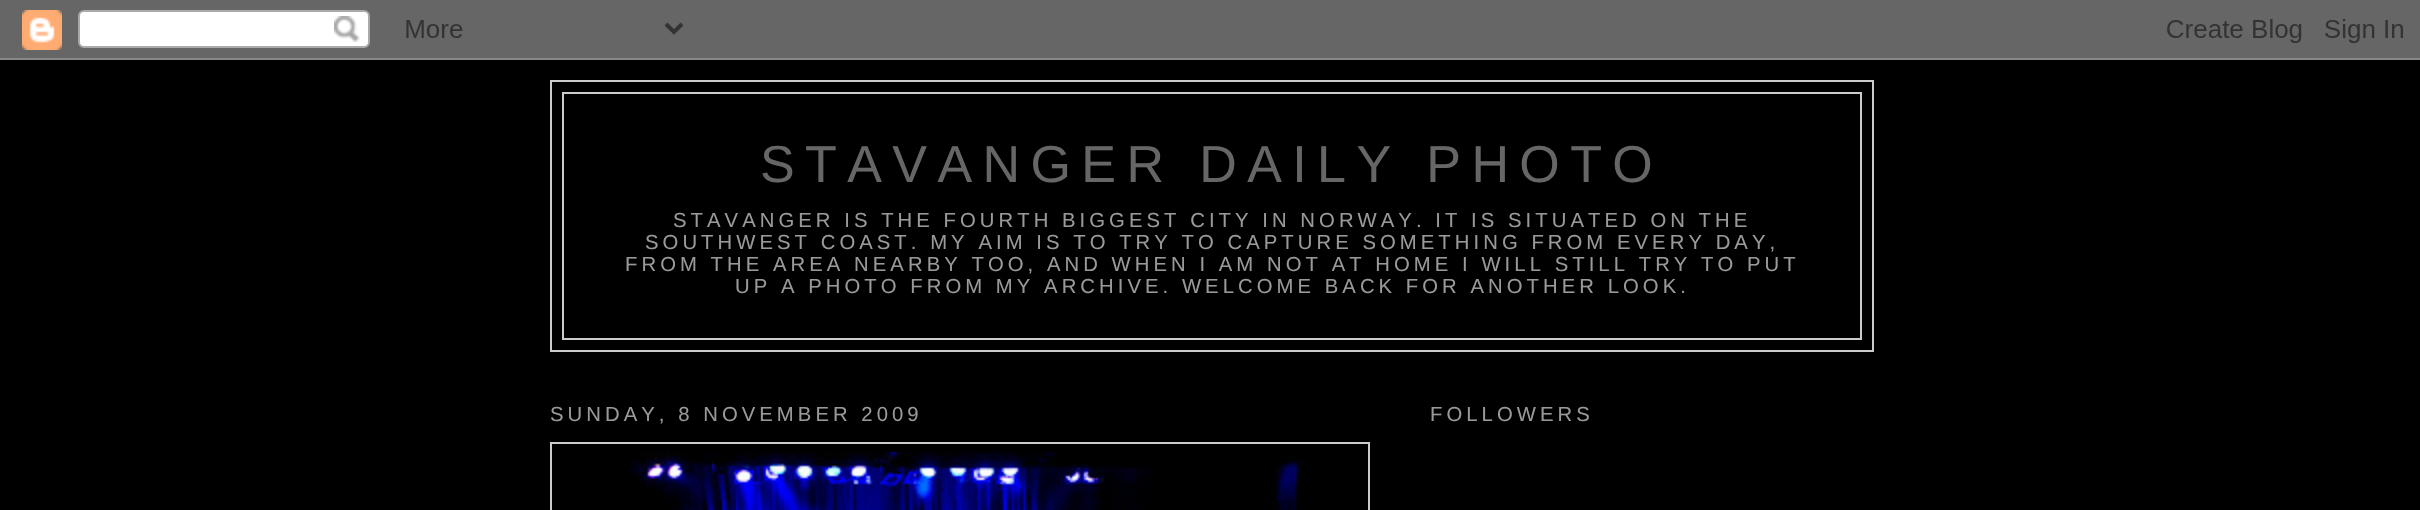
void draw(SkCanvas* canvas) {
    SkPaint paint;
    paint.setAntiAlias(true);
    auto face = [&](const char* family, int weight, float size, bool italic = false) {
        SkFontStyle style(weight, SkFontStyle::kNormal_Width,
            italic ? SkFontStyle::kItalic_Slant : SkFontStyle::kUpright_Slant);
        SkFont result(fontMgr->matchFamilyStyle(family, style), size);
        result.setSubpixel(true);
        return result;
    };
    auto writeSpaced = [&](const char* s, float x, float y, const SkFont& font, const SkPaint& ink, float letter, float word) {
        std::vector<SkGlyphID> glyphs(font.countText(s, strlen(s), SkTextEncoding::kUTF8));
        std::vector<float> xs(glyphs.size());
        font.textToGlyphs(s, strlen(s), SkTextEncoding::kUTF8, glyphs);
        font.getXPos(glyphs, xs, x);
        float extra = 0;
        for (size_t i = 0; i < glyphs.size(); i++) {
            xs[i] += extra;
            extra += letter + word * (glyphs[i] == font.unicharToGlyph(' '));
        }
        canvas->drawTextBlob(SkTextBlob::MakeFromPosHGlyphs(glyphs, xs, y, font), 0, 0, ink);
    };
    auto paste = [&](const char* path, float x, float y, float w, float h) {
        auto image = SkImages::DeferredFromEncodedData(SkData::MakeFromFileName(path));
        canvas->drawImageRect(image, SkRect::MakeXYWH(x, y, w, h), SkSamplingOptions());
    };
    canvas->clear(SK_ColorBLACK);
    paste("pic1.png", 0, 0, 2420, 60);
    paint.setStyle(SkPaint::kStroke_Style);
    paint.setStrokeWidth(2);
    paint.setColor(SkColorSetRGB(204, 204, 204));
    canvas->drawRect(SkRect::MakeXYWH(551, 81, 1322, 270), paint);
    canvas->drawRect(SkRect::MakeXYWH(563, 93, 1298, 246), paint);
    auto kFont1 = face("Liberation Sans", 400, 52);
    paint.setStyle(SkPaint::kFill_Style);
    paint.setColor(SkColorSetRGB(102, 102, 102));
    writeSpaced("STAVANGER DAILY PHOTO", 760, 182, kFont1, paint, 10.4f, 0);
    auto kFont2 = face("Liberation Sans", 400, 20.28f);
    paint.setColor(SkColorSetRGB(153, 153, 153));
    writeSpaced("STAVANGER IS THE FOURTH BIGGEST CITY IN NORWAY. IT IS SITUATED ON THE", 673, 227, kFont2, paint, 4.05f, 0);
    writeSpaced("SOUTHWEST COAST. MY AIM IS TO TRY TO CAPTURE SOMETHING FROM EVERY DAY,", 645, 249, kFont2, paint, 4.05f, 0);
    writeSpaced("FROM THE AREA NEARBY TOO, AND WHEN I AM NOT AT HOME I WILL STILL TRY TO PUT", 625, 271, kFont2, paint, 4.05f, 0);
    writeSpaced("UP A PHOTO FROM MY ARCHIVE. WELCOME BACK FOR ANOTHER LOOK.", 735, 293, kFont2, paint, 4.05f, 0);
    writeSpaced("SUNDAY, 8 NOVEMBER 2009", 550, 421, kFont2, paint, 4.05f, 0);
    paint.setStyle(SkPaint::kStroke_Style);
    paint.setColor(SkColorSetRGB(204, 204, 204));
    canvas->drawRect(SkRect::MakeXYWH(551, 443, 818, 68), paint);
    paste("pic2.png", 629, 452, 683, 58);
    paint.setStyle(SkPaint::kFill_Style);
    paint.setColor(SkColorSetRGB(153, 153, 153));
    writeSpaced("FOLLOWERS", 1430, 421, kFont2, paint, 4.05f, 0);
}
